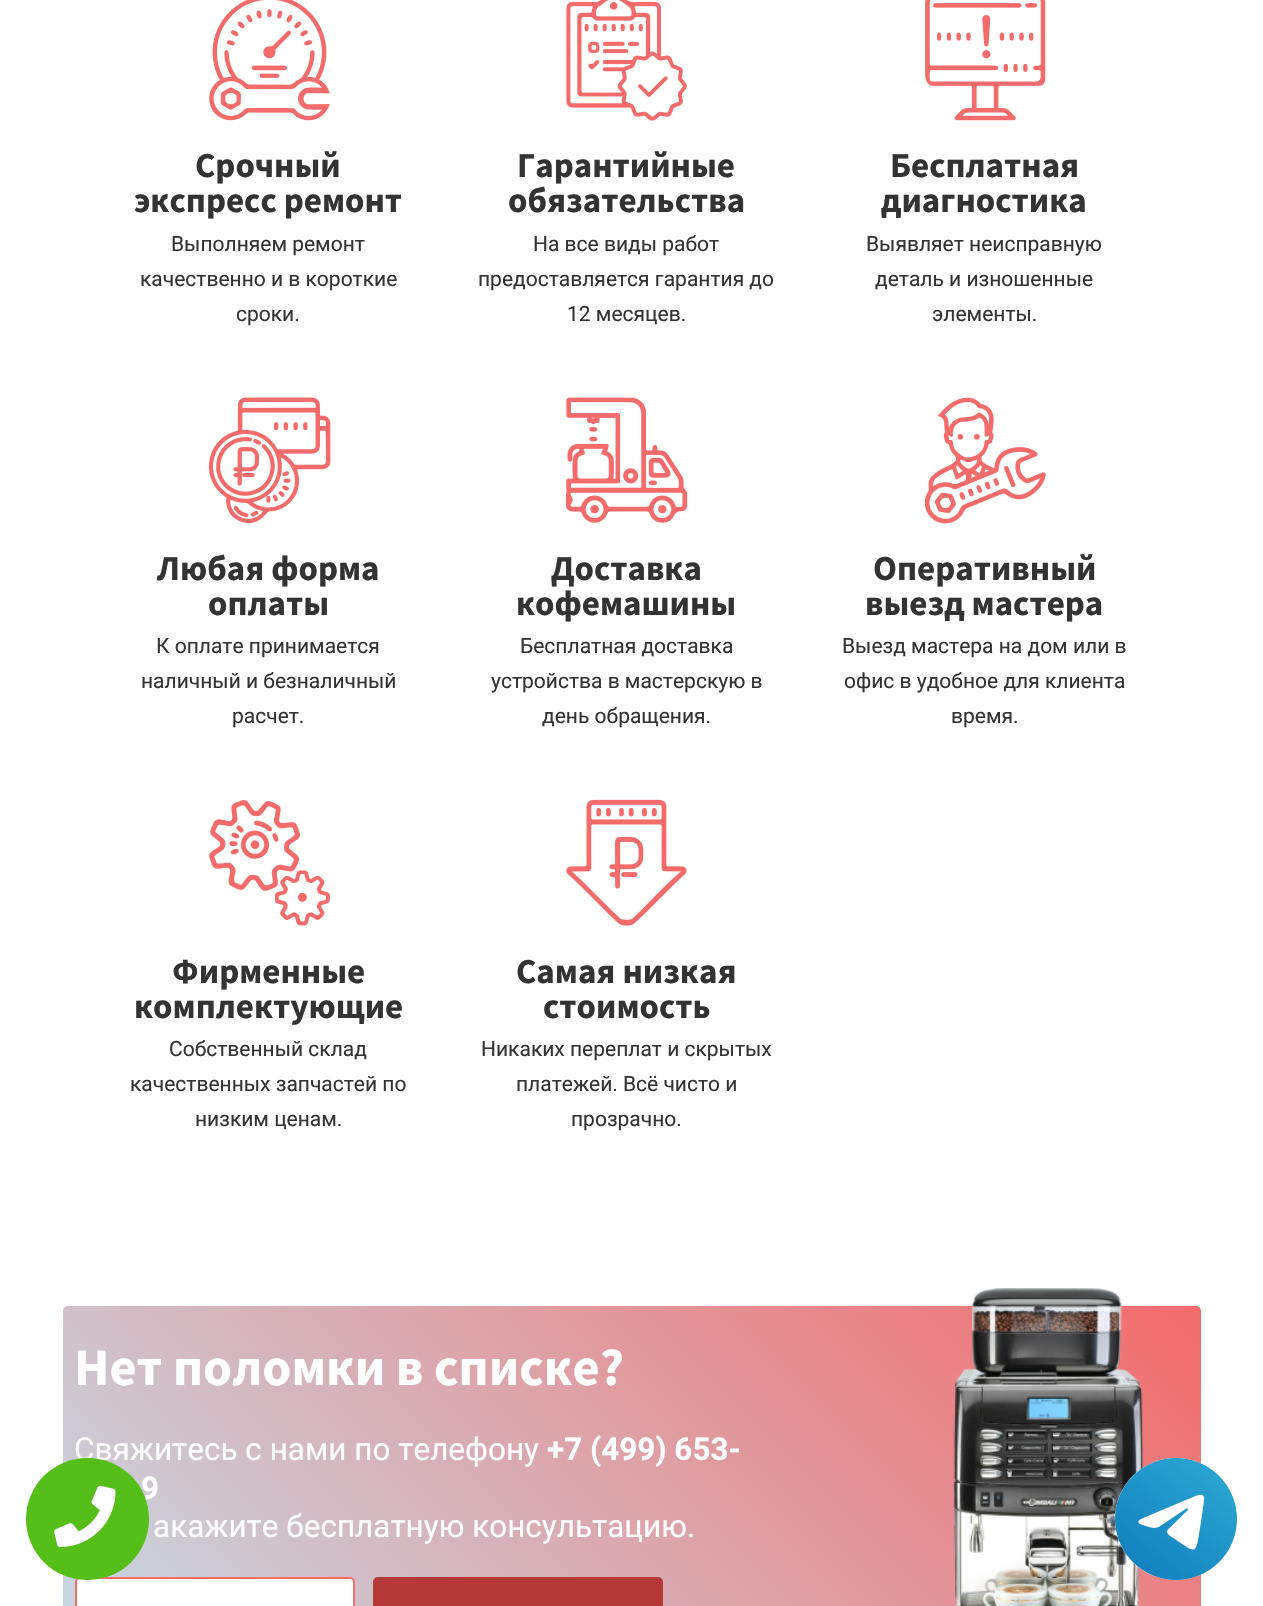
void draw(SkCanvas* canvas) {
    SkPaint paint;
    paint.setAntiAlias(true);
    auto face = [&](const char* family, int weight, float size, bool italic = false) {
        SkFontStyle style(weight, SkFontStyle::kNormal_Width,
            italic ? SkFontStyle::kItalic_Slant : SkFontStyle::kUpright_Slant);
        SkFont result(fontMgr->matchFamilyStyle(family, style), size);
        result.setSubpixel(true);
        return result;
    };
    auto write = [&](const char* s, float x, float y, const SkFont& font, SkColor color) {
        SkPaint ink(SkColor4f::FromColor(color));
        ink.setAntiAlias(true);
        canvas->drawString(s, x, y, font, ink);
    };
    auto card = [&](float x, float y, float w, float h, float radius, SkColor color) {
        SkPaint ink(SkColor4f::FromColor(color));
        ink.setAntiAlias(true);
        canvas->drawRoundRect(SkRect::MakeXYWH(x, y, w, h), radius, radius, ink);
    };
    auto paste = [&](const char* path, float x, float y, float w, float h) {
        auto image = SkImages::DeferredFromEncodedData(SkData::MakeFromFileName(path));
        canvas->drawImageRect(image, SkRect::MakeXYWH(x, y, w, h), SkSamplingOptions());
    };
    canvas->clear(SK_ColorWHITE);
    paste("pic1.png", 209, 0, 121, 121);
    auto kFont1 = face("Source Sans Pro", 700, 35);
    write("Срочный", 195, 177, kFont1, SkColorSetRGB(51, 51, 51));
    write("экспресс ремонт", 134, 212, kFont1, SkColorSetRGB(51, 51, 51));
    auto kFont2 = face("Roboto", 400, 21);
    write("Выполняем ремонт", 171, 251, kFont2, SkColorSetRGB(51, 51, 51));
    write("качественно и в короткие", 140, 286, kFont2, SkColorSetRGB(51, 51, 51));
    write("сроки.", 236, 321, kFont2, SkColorSetRGB(51, 51, 51));
    paste("pic2.png", 566, 0, 121, 121);
    write("Гарантийные", 517, 177, kFont1, SkColorSetRGB(51, 51, 51));
    write("обязательства", 508, 212, kFont1, SkColorSetRGB(51, 51, 51));
    write("На все виды работ", 533, 251, kFont2, SkColorSetRGB(51, 51, 51));
    write("предоставляется гарантия до", 478, 286, kFont2, SkColorSetRGB(51, 51, 51));
    write("12 месяцев.", 567, 321, kFont2, SkColorSetRGB(51, 51, 51));
    paste("pic3.png", 925, 0, 121, 121);
    write("Бесплатная", 890, 177, kFont1, SkColorSetRGB(51, 51, 51));
    write("диагностика", 881, 212, kFont1, SkColorSetRGB(51, 51, 51));
    write("Выявляет неисправную", 866, 251, kFont2, SkColorSetRGB(51, 51, 51));
    write("деталь и изношенные", 875, 286, kFont2, SkColorSetRGB(51, 51, 51));
    write("элементы.", 932, 321, kFont2, SkColorSetRGB(51, 51, 51));
    paste("pic4.png", 208, 397, 123, 126);
    write("Любая форма", 157, 580, kFont1, SkColorSetRGB(51, 51, 51));
    write("оплаты", 208, 615, kFont1, SkColorSetRGB(51, 51, 51));
    write("К оплате принимается", 156, 653, kFont2, SkColorSetRGB(51, 51, 51));
    write("наличный и безналичный", 141, 688, kFont2, SkColorSetRGB(51, 51, 51));
    write("расчет.", 232, 723, kFont2, SkColorSetRGB(51, 51, 51));
    paste("pic5.png", 566, 397, 122, 126);
    write("Доставка", 551, 580, kFont1, SkColorSetRGB(51, 51, 51));
    write("кофемашины", 516, 615, kFont1, SkColorSetRGB(51, 51, 51));
    write("Бесплатная доставка", 520, 653, kFont2, SkColorSetRGB(51, 51, 51));
    write("устройства в мастерскую в", 491, 688, kFont2, SkColorSetRGB(51, 51, 51));
    write("день обращения.", 542, 723, kFont2, SkColorSetRGB(51, 51, 51));
    paste("pic6.png", 924, 397, 122, 127);
    write("Оперативный", 873, 580, kFont1, SkColorSetRGB(51, 51, 51));
    write("выезд мастера", 865, 615, kFont1, SkColorSetRGB(51, 51, 51));
    write("Выезд мастера на дом или в", 842, 653, kFont2, SkColorSetRGB(51, 51, 51));
    write("офис в удобное для клиента", 844, 688, kFont2, SkColorSetRGB(51, 51, 51));
    write("время.", 951, 723, kFont2, SkColorSetRGB(51, 51, 51));
    paste("pic7.png", 209, 800, 121, 126);
    write("Фирменные", 172, 983, kFont1, SkColorSetRGB(51, 51, 51));
    write("комплектующие", 134, 1018, kFont1, SkColorSetRGB(51, 51, 51));
    write("Собственный склад", 169, 1056, kFont2, SkColorSetRGB(51, 51, 51));
    write("качественных запчастей по", 130, 1091, kFont2, SkColorSetRGB(51, 51, 51));
    write("низким ценам.", 195, 1126, kFont2, SkColorSetRGB(51, 51, 51));
    paste("pic8.png", 566, 799, 121, 127);
    write("Самая низкая", 516, 983, kFont1, SkColorSetRGB(51, 51, 51));
    write("стоимость", 543, 1018, kFont1, SkColorSetRGB(51, 51, 51));
    write("Никаких переплат и скрытых", 481, 1056, kFont2, SkColorSetRGB(51, 51, 51));
    write("платежей. Всё чисто и", 516, 1091, kFont2, SkColorSetRGB(51, 51, 51));
    write("прозрачно.", 571, 1126, kFont2, SkColorSetRGB(51, 51, 51));
    {
        const SkColor colors[] = {SkColorSetRGB(197, 221, 232), SkColorSetRGB(243, 107, 107)};
        const float stops[] = {0, 1};
        const SkPoint ends[] = {{253, 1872}, {1010, 1115}};
        paint.setShader(SkGradientShader::MakeLinear(ends, colors, stops, 2, SkTileMode::kClamp));
        paint.setAlpha(255);
    }
    canvas->drawRoundRect(SkRect::MakeXYWH(63, 1306, 1138, 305), 5, 5, paint);
    auto kFont3 = face("Source Sans Pro", 700, 52.5f);
    write("Нет поломки в списке?", 74, 1385, kFont3, SK_ColorWHITE);
    auto kFont4 = face("Roboto", 400, 31.5f);
    write("Свяжитесь с нами по телефону", 74, 1460, kFont4, SK_ColorWHITE);
    auto kFont5 = face("Roboto", 700, 31.5f);
    write("+7 (499) 653-", 547, 1460, kFont5, SK_ColorWHITE);
    write("9", 141, 1499, kFont5, SK_ColorWHITE);
    write("акажите бесплатную консультацию.", 153, 1537, kFont4, SK_ColorWHITE);
    paint.setShader(nullptr);
    paint.setColor(SK_ColorWHITE);
    canvas->drawRoundRect(SkRect::MakeXYWH(76, 1578, 278, 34), 4, 4, paint);
    paint.setStyle(SkPaint::kStroke_Style);
    paint.setStrokeWidth(2);
    paint.setColor(SkColorSetRGB(243, 107, 107));
    canvas->drawRoundRect(SkRect::MakeXYWH(76, 1578, 278, 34), 4, 4, paint);
    paint.setStyle(SkPaint::kFill_Style);
    paint.setColor(SkColorSetRGB(181, 57, 57));
    canvas->drawRoundRect(SkRect::MakeXYWH(374, 1578, 288, 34), 4, 4, paint);
    paint.setStyle(SkPaint::kStroke_Style);
    canvas->drawRoundRect(SkRect::MakeXYWH(374, 1578, 288, 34), 4, 4, paint);
    paste("pic9.png", 953, 1288, 191, 318);
    card(26, 1458, 123, 122, 61, SkColorSetRGB(86, 190, 25));
    paste("pic10.png", 54, 1485, 62, 62);
    paint.setStyle(SkPaint::kFill_Style);
    paint.setColor(SK_ColorWHITE);
    canvas->drawCircle(1176, 1519, 61, paint);
    paste("pic11.png", 1115, 1458, 122, 122);
}
